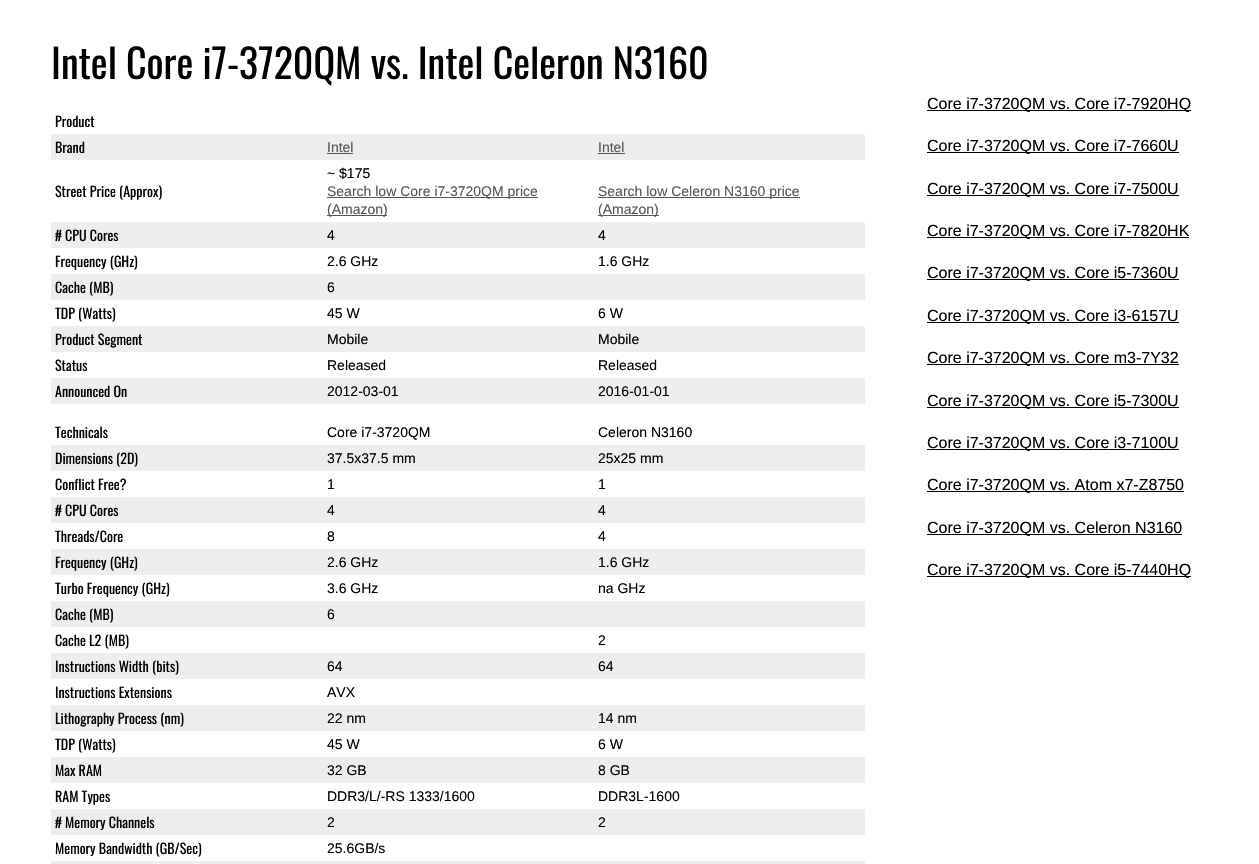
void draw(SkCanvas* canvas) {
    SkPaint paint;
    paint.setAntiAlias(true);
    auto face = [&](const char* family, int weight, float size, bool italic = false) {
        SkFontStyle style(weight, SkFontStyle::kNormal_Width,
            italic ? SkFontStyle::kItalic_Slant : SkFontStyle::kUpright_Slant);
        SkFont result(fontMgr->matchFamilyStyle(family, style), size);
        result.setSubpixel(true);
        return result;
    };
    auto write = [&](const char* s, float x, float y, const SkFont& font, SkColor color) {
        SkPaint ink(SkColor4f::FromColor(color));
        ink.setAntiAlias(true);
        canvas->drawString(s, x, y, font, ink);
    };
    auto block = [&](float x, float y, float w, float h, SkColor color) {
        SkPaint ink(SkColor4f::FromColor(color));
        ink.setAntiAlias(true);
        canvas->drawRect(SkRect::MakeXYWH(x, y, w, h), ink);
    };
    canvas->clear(SK_ColorWHITE);
    auto kFont1 = face("Oswald", 400, 40);
    write("Intel Core i7-3720QM vs. Intel Celeron N3160", 51, 79, kFont1, SK_ColorBLACK);
    auto kFont2 = face("Oswald", 400, 14);
    write("Product", 55, 127, kFont2, SK_ColorBLACK);
    block(51, 134, 814, 26, SkColorSetRGB(238, 238, 238));
    write("Brand", 55, 153, kFont2, SK_ColorBLACK);
    auto kFont3 = face("Liberation Sans", 400, 14);
    write("Intel", 327, 152, kFont3, SkColorSetRGB(85, 85, 85));
    block(327, 153, 26, 1, SkColorSetRGB(85, 85, 85));
    write("Intel", 598, 152, kFont3, SkColorSetRGB(85, 85, 85));
    block(598, 153, 27, 1, SkColorSetRGB(85, 85, 85));
    write("Street Price (Approx)", 55, 197, kFont2, SK_ColorBLACK);
    write("~ $175", 327, 178, kFont3, SK_ColorBLACK);
    block(327, 197, 211, 1, SkColorSetRGB(85, 85, 85));
    write("Search low Core i7-3720QM price", 327, 196, kFont3, SkColorSetRGB(85, 85, 85));
    block(327, 215, 60, 1, SkColorSetRGB(85, 85, 85));
    write("(Amazon)", 327, 214, kFont3, SkColorSetRGB(85, 85, 85));
    block(598, 197, 202, 1, SkColorSetRGB(85, 85, 85));
    write("Search low Celeron N3160 price", 598, 196, kFont3, SkColorSetRGB(85, 85, 85));
    block(598, 215, 61, 1, SkColorSetRGB(85, 85, 85));
    write("(Amazon)", 598, 214, kFont3, SkColorSetRGB(85, 85, 85));
    block(51, 222, 814, 26, SkColorSetRGB(238, 238, 238));
    write("# CPU Cores", 55, 241, kFont2, SK_ColorBLACK);
    write("4", 327, 240, kFont3, SK_ColorBLACK);
    write("4", 598, 240, kFont3, SK_ColorBLACK);
    write("Frequency (GHz)", 55, 267, kFont2, SK_ColorBLACK);
    write("2.6 GHz", 327, 266, kFont3, SK_ColorBLACK);
    write("1.6 GHz", 598, 266, kFont3, SK_ColorBLACK);
    block(51, 274, 814, 26, SkColorSetRGB(238, 238, 238));
    write("Cache (MB)", 55, 293, kFont2, SK_ColorBLACK);
    write("6", 327, 292, kFont3, SK_ColorBLACK);
    write("TDP (Watts)", 55, 319, kFont2, SK_ColorBLACK);
    write("45 W", 327, 318, kFont3, SK_ColorBLACK);
    write("6 W", 598, 318, kFont3, SK_ColorBLACK);
    block(51, 326, 814, 26, SkColorSetRGB(238, 238, 238));
    write("Product Segment", 55, 345, kFont2, SK_ColorBLACK);
    write("Mobile", 327, 344, kFont3, SK_ColorBLACK);
    write("Mobile", 598, 344, kFont3, SK_ColorBLACK);
    write("Status", 55, 371, kFont2, SK_ColorBLACK);
    write("Released", 327, 370, kFont3, SK_ColorBLACK);
    write("Released", 598, 370, kFont3, SK_ColorBLACK);
    block(51, 378, 814, 26, SkColorSetRGB(238, 238, 238));
    write("Announced On", 55, 397, kFont2, SK_ColorBLACK);
    write("2012-03-01", 327, 396, kFont3, SK_ColorBLACK);
    write("2016-01-01", 598, 396, kFont3, SK_ColorBLACK);
    write("Technicals", 55, 438, kFont2, SK_ColorBLACK);
    write("Core i7-3720QM", 327, 437, kFont3, SK_ColorBLACK);
    write("Celeron N3160", 598, 437, kFont3, SK_ColorBLACK);
    block(51, 445, 814, 26, SkColorSetRGB(238, 238, 238));
    write("Dimensions (2D)", 55, 464, kFont2, SK_ColorBLACK);
    write("37.5x37.5 mm", 327, 463, kFont3, SK_ColorBLACK);
    write("25x25 mm", 598, 463, kFont3, SK_ColorBLACK);
    write("Conflict Free?", 55, 490, kFont2, SK_ColorBLACK);
    write("1", 327, 489, kFont3, SK_ColorBLACK);
    write("1", 598, 489, kFont3, SK_ColorBLACK);
    block(51, 497, 814, 26, SkColorSetRGB(238, 238, 238));
    write("# CPU Cores", 55, 516, kFont2, SK_ColorBLACK);
    write("4", 327, 515, kFont3, SK_ColorBLACK);
    write("4", 598, 515, kFont3, SK_ColorBLACK);
    write("Threads/Core", 55, 542, kFont2, SK_ColorBLACK);
    write("8", 327, 541, kFont3, SK_ColorBLACK);
    write("4", 598, 541, kFont3, SK_ColorBLACK);
    block(51, 549, 814, 26, SkColorSetRGB(238, 238, 238));
    write("Frequency (GHz)", 55, 568, kFont2, SK_ColorBLACK);
    write("2.6 GHz", 327, 567, kFont3, SK_ColorBLACK);
    write("1.6 GHz", 598, 567, kFont3, SK_ColorBLACK);
    write("Turbo Frequency (GHz)", 55, 594, kFont2, SK_ColorBLACK);
    write("3.6 GHz", 327, 593, kFont3, SK_ColorBLACK);
    write("na GHz", 598, 593, kFont3, SK_ColorBLACK);
    block(51, 601, 814, 26, SkColorSetRGB(238, 238, 238));
    write("Cache (MB)", 55, 620, kFont2, SK_ColorBLACK);
    write("6", 327, 619, kFont3, SK_ColorBLACK);
    write("Cache L2 (MB)", 55, 646, kFont2, SK_ColorBLACK);
    write("2", 598, 645, kFont3, SK_ColorBLACK);
    block(51, 653, 814, 26, SkColorSetRGB(238, 238, 238));
    write("Instructions Width (bits)", 55, 672, kFont2, SK_ColorBLACK);
    write("64", 327, 671, kFont3, SK_ColorBLACK);
    write("64", 598, 671, kFont3, SK_ColorBLACK);
    write("Instructions Extensions", 55, 698, kFont2, SK_ColorBLACK);
    write("AVX", 327, 697, kFont3, SK_ColorBLACK);
    block(51, 705, 814, 26, SkColorSetRGB(238, 238, 238));
    write("Lithography Process (nm)", 55, 724, kFont2, SK_ColorBLACK);
    write("22 nm", 327, 723, kFont3, SK_ColorBLACK);
    write("14 nm", 598, 723, kFont3, SK_ColorBLACK);
    write("TDP (Watts)", 55, 750, kFont2, SK_ColorBLACK);
    write("45 W", 327, 749, kFont3, SK_ColorBLACK);
    write("6 W", 598, 749, kFont3, SK_ColorBLACK);
    block(51, 757, 814, 26, SkColorSetRGB(238, 238, 238));
    write("Max RAM", 55, 776, kFont2, SK_ColorBLACK);
    write("32 GB", 327, 775, kFont3, SK_ColorBLACK);
    write("8 GB", 598, 775, kFont3, SK_ColorBLACK);
    write("RAM Types", 55, 802, kFont2, SK_ColorBLACK);
    write("DDR3/L/-RS 1333/1600", 327, 801, kFont3, SK_ColorBLACK);
    write("DDR3L-1600", 598, 801, kFont3, SK_ColorBLACK);
    block(51, 809, 814, 26, SkColorSetRGB(238, 238, 238));
    write("# Memory Channels", 55, 828, kFont2, SK_ColorBLACK);
    write("2", 327, 827, kFont3, SK_ColorBLACK);
    write("2", 598, 827, kFont3, SK_ColorBLACK);
    write("Memory Bandwidth (GB/Sec)", 55, 854, kFont2, SK_ColorBLACK);
    write("25.6GB/s", 327, 853, kFont3, SK_ColorBLACK);
    block(51, 861, 814, 3, SkColorSetRGB(238, 238, 238));
    block(927, 110, 264, 1, SK_ColorBLACK);
    auto kFont4 = face("Liberation Sans", 400, 16);
    write("Core i7-3720QM vs. Core i7-7920HQ", 927, 109, kFont4, SK_ColorBLACK);
    block(927, 152, 252, 1, SK_ColorBLACK);
    write("Core i7-3720QM vs. Core i7-7660U", 927, 151, kFont4, SK_ColorBLACK);
    block(927, 195, 252, 1, SK_ColorBLACK);
    write("Core i7-3720QM vs. Core i7-7500U", 927, 194, kFont4, SK_ColorBLACK);
    block(927, 237, 262, 1, SK_ColorBLACK);
    write("Core i7-3720QM vs. Core i7-7820HK", 927, 236, kFont4, SK_ColorBLACK);
    block(927, 279, 252, 1, SK_ColorBLACK);
    write("Core i7-3720QM vs. Core i5-7360U", 927, 278, kFont4, SK_ColorBLACK);
    block(927, 322, 252, 1, SK_ColorBLACK);
    write("Core i7-3720QM vs. Core i3-6157U", 927, 321, kFont4, SK_ColorBLACK);
    block(927, 364, 252, 1, SK_ColorBLACK);
    write("Core i7-3720QM vs. Core m3-7Y32", 927, 363, kFont4, SK_ColorBLACK);
    block(927, 407, 252, 1, SK_ColorBLACK);
    write("Core i7-3720QM vs. Core i5-7300U", 927, 406, kFont4, SK_ColorBLACK);
    block(927, 449, 252, 1, SK_ColorBLACK);
    write("Core i7-3720QM vs. Core i3-7100U", 927, 448, kFont4, SK_ColorBLACK);
    block(927, 491, 257, 1, SK_ColorBLACK);
    write("Core i7-3720QM vs. Atom x7-Z8750", 927, 490, kFont4, SK_ColorBLACK);
    block(927, 534, 255, 1, SK_ColorBLACK);
    write("Core i7-3720QM vs. Celeron N3160", 927, 533, kFont4, SK_ColorBLACK);
    block(927, 576, 264, 1, SK_ColorBLACK);
    write("Core i7-3720QM vs. Core i5-7440HQ", 927, 575, kFont4, SK_ColorBLACK);
}
